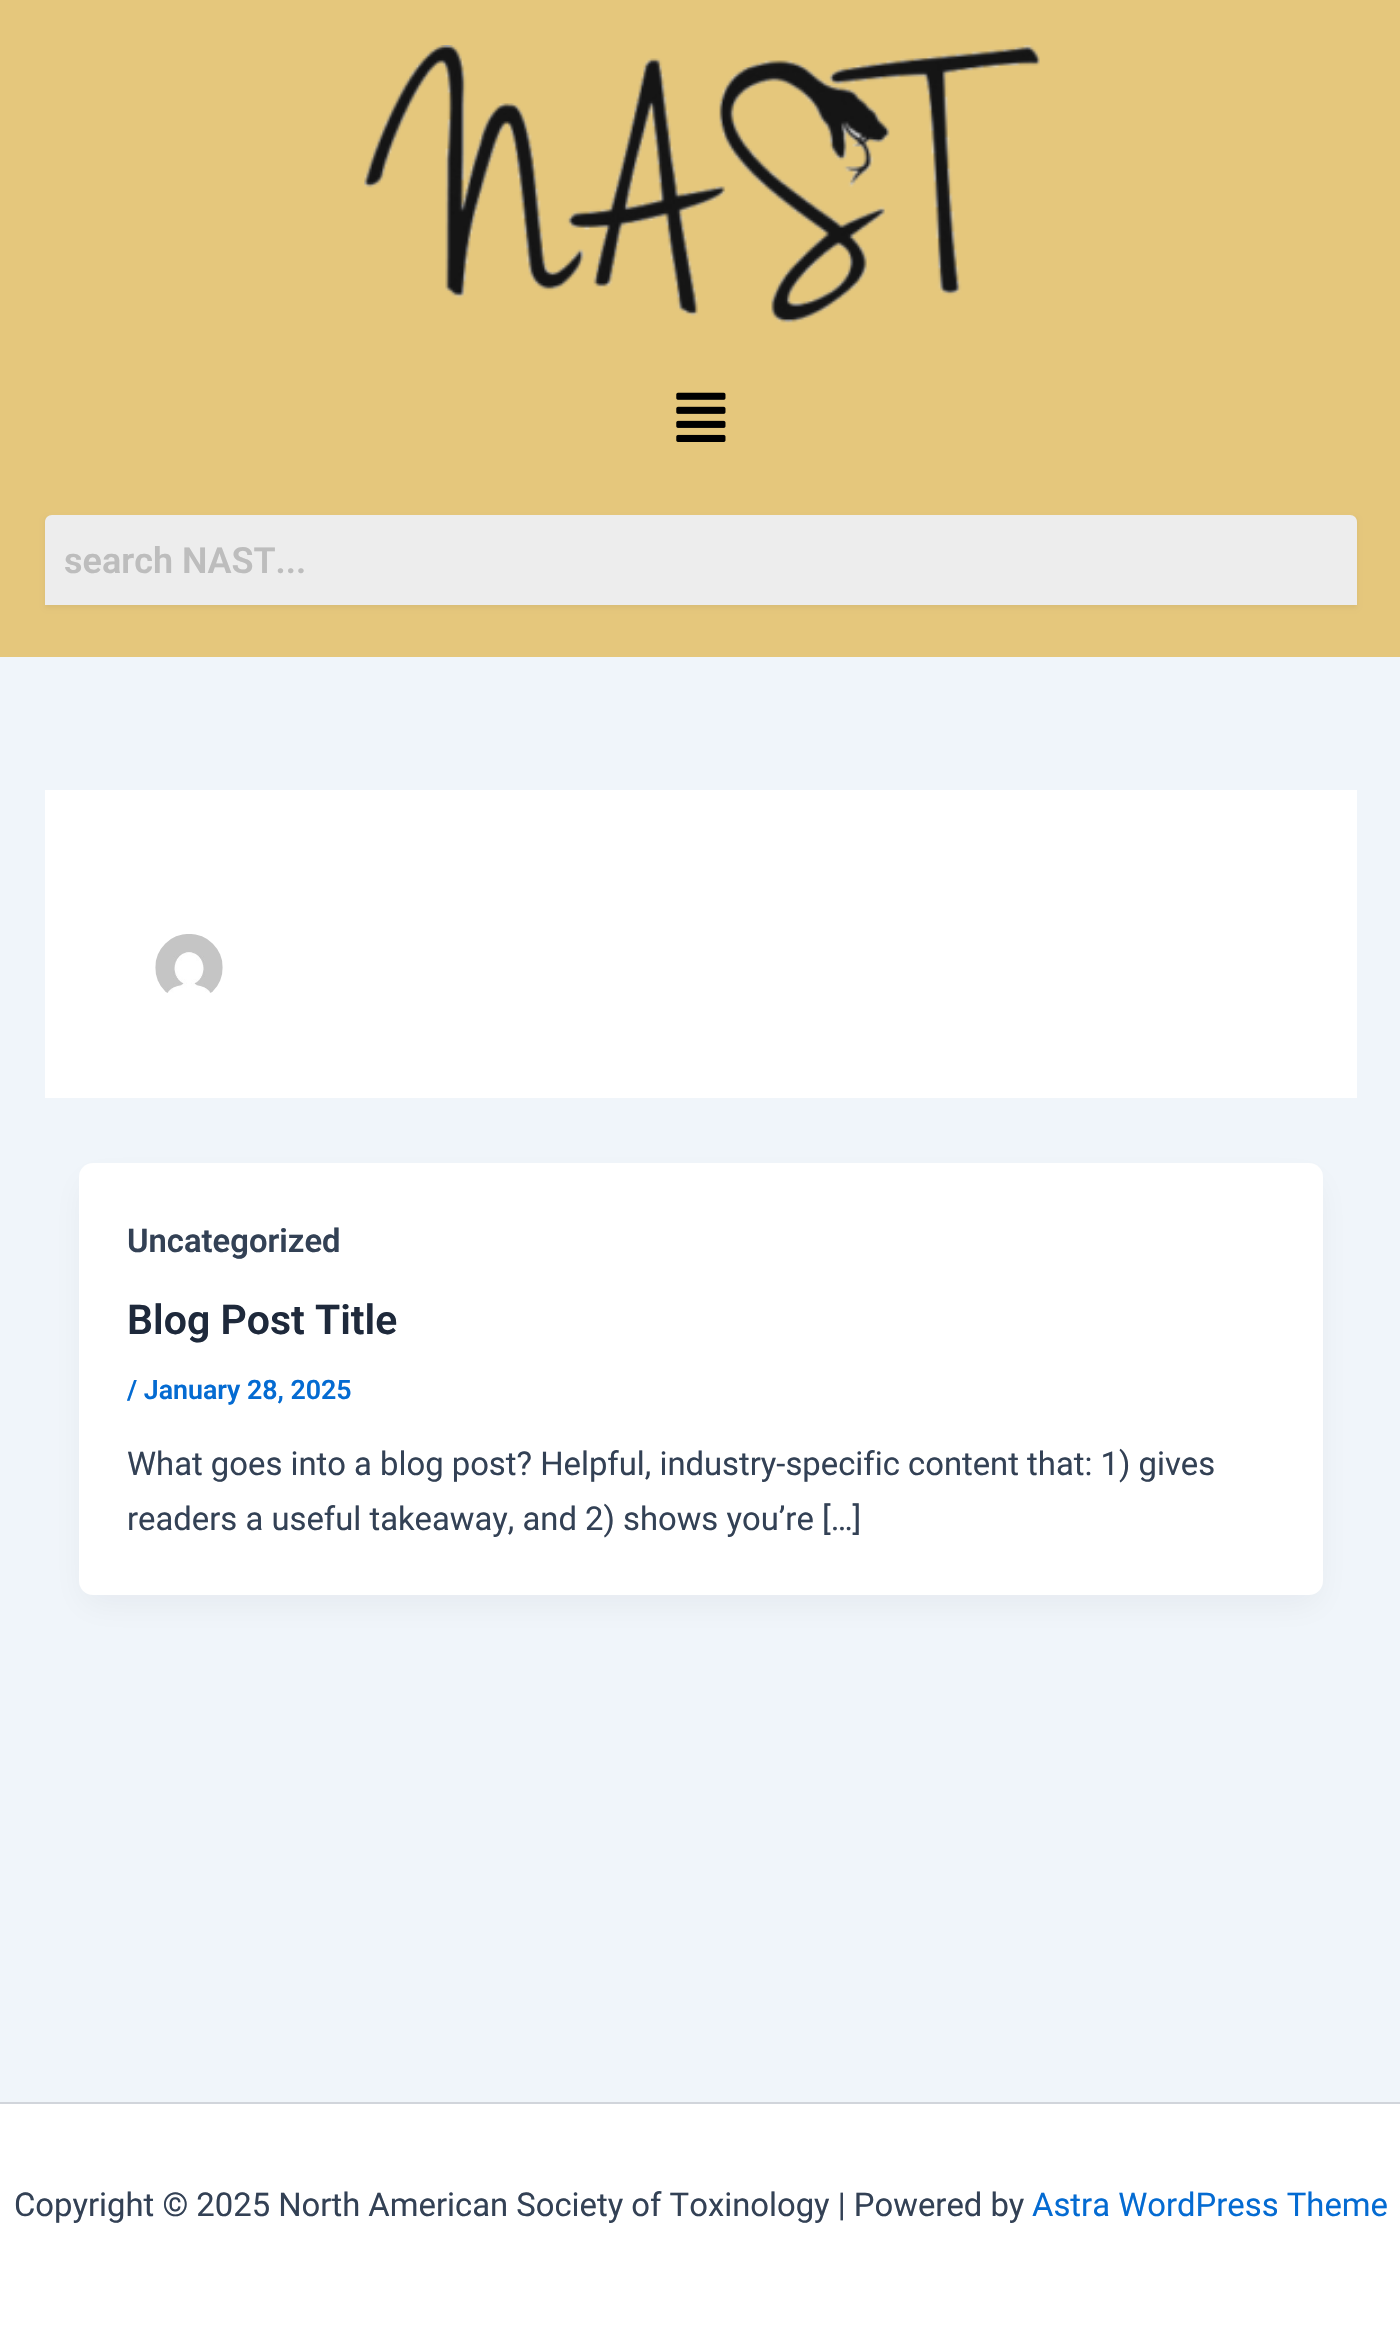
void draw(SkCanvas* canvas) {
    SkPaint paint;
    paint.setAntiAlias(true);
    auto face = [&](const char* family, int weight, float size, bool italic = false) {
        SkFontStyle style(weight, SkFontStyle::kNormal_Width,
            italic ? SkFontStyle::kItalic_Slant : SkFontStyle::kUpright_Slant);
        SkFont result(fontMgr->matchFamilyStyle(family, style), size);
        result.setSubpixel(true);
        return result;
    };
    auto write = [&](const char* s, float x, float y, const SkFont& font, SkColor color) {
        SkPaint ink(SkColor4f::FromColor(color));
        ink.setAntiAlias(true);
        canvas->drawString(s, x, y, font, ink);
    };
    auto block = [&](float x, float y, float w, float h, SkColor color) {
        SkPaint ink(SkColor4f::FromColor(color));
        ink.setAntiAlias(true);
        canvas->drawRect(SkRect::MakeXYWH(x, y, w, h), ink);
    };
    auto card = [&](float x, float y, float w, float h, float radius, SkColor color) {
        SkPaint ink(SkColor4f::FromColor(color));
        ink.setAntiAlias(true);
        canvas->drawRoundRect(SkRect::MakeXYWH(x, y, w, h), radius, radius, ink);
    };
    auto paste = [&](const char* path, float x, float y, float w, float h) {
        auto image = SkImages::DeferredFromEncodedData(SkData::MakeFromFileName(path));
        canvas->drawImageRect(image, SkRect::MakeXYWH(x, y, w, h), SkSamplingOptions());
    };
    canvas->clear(SkColorSetRGB(240, 245, 250));
    block(0, 0, 1400, 657, SkColorSetRGB(229, 199, 124));
    paste("pic1.png", 364, 45, 676, 279);
    paste("pic2.png", 676, 392, 50, 50);
    paint.setColor(SkColorSetARGB(13, 0, 0, 0));
    paint.setMaskFilter(SkMaskFilter::MakeBlur(kNormal_SkBlurStyle, 2));
    canvas->drawRect(SkRect::MakeXYWH(45, 518, 1312, 90), paint);
    paint.setMaskFilter(nullptr);
    paint.setColor(SkColorSetRGB(237, 237, 237));
    canvas->drawPath(SkPathBuilder().moveTo(52, 515).lineTo(1350, 515).cubicTo(1354, 515, 1357, 518, 1357, 522).lineTo(1357, 605).lineTo(45, 605).lineTo(45, 522).cubicTo(45, 518, 48, 515, 52, 515).close().detach(), paint);
    auto kFont1 = face("Roboto", 600, 36);
    write("search NAST...", 64, 573, kFont1, SkColorSetRGB(189, 189, 189));
    block(45, 790, 1312, 308, SK_ColorWHITE);
    paste("pic3.png", 155, 934, 68, 59);
    paint.setColor(SkColorSetARGB(13, 16, 24, 40));
    paint.setMaskFilter(SkMaskFilter::MakeBlur(kNormal_SkBlurStyle, 17));
    canvas->drawRoundRect(SkRect::MakeXYWH(83, 1181, 1236, 423), 9, 9, paint);
    paint.setMaskFilter(nullptr);
    card(79, 1163, 1244, 432, 14, SK_ColorWHITE);
    auto kFont2 = face("Roboto", 600, 32.8f);
    write("Uncategorized", 127, 1252, kFont2, SkColorSetRGB(51, 65, 85));
    auto kFont3 = face("Roboto", 600, 41);
    write("Blog Post Title", 127, 1334, kFont3, SkColorSetRGB(30, 41, 59));
    auto kFont4 = face("Roboto", 600, 26.75f);
    write("/ January 28, 2025", 127, 1399, kFont4, SkColorSetRGB(4, 107, 210));
    auto kFont5 = face("Roboto", 400, 32.8f);
    write("What goes into a blog post? Helpful, industry-specific content that: 1) gives", 127, 1475, kFont5, SkColorSetRGB(51, 65, 85));
    write("readers a useful takeaway, and 2) shows you’re […]", 127, 1530, kFont5, SkColorSetRGB(51, 65, 85));
    block(0, 2104, 1400, 223, SK_ColorWHITE);
    block(0, 2102, 1400, 2, SkColorSetRGB(209, 213, 219));
    write("Copyright © 2025 North American Society of Toxinology | Powered by", 14, 2216, kFont5, SkColorSetRGB(51, 65, 85));
    write("Astra WordPress Theme", 1032, 2216, kFont5, SkColorSetRGB(4, 107, 210));
}
